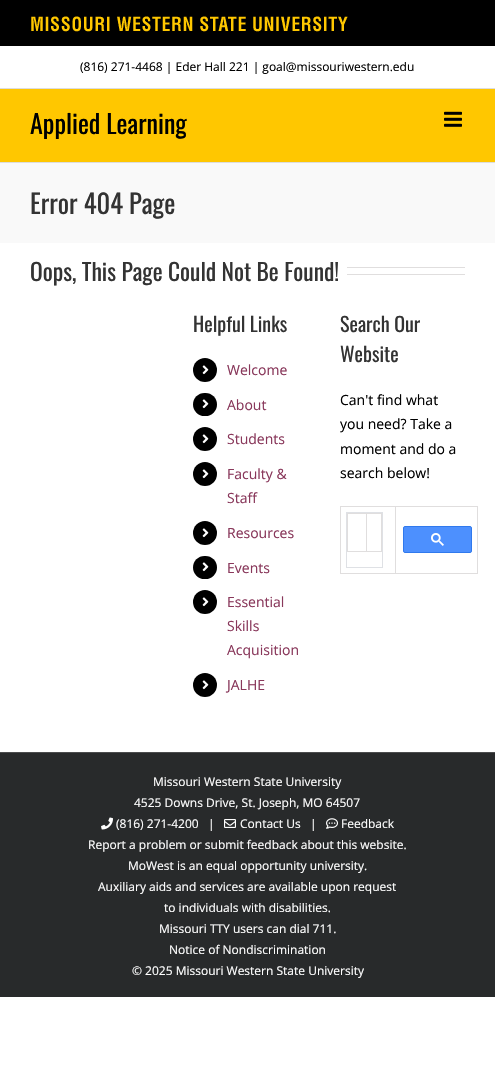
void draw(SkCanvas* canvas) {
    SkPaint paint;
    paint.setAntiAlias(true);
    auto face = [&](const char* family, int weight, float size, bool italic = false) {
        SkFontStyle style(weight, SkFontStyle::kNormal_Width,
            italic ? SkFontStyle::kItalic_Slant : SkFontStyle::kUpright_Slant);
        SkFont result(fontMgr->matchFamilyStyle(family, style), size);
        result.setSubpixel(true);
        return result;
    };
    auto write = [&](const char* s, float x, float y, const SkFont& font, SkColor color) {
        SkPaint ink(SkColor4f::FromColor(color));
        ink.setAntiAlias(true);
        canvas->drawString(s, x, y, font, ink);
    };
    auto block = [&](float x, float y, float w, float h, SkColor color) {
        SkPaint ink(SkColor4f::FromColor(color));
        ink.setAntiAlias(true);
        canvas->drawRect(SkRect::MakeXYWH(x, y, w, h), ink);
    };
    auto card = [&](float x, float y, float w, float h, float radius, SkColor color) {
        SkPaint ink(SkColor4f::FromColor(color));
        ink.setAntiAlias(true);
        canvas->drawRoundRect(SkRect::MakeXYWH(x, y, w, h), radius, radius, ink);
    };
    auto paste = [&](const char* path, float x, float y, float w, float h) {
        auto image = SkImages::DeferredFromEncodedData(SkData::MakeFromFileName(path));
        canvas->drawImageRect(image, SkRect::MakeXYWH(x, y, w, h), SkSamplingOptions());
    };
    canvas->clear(SK_ColorWHITE);
    block(0, 0, 495, 46, SK_ColorBLACK);
    paste("pic1.png", 31, 16, 317, 16);
    block(0, 88, 495, 1, SkColorSetRGB(221, 221, 221));
    auto kFont1 = face("Open Sans", 400, 12);
    write("(816) 271-4468 | Eder Hall 221 | goal@missouriwestern.edu", 80, 71, kFont1, SK_ColorBLACK);
    block(0, 89, 495, 73, SkColorSetRGB(255, 199, 0));
    block(0, 162, 495, 1, SkColorSetRGB(221, 221, 221));
    auto kFont2 = face("Oswald", 400, 26);
    write("Applied Learning", 30, 134, kFont2, SK_ColorBLACK);
    paste("pic2.png", 444, 111, 18, 16);
    block(0, 163, 495, 80, SkColorSetRGB(249, 249, 249));
    auto kFont3 = face("Oswald", 400, 26.5f);
    write("Error 404 Page", 30, 214, kFont3, SkColorSetRGB(51, 51, 51));
    auto kFont4 = face("Oswald", 400, 23.5f);
    write("Oops, This Page Could Not Be Found!", 30, 281, kFont4, SkColorSetRGB(51, 51, 51));
    block(347, 267, 118, 1, SkColorSetRGB(224, 222, 222));
    block(347, 274, 118, 1, SkColorSetRGB(224, 222, 222));
    auto kFont5 = face("Oswald", 400, 20);
    write("Helpful Links", 193, 332, kFont5, SkColorSetRGB(51, 51, 51));
    paint.setColor(SK_ColorBLACK);
    canvas->drawCircle(205, 370, 12, paint);
    paste("pic3.png", 202, 365, 7, 10);
    auto kFont6 = face("Open Sans", 400, 14);
    write("Welcome", 227, 375, kFont6, SkColorSetRGB(137, 56, 91));
    card(193, 393, 24, 23, 11.5f, SK_ColorBLACK);
    paste("pic3.png", 202, 399, 7, 10);
    write("About", 227, 410, kFont6, SkColorSetRGB(137, 56, 91));
    canvas->drawCircle(205, 439, 12, paint);
    paste("pic3.png", 202, 434, 7, 10);
    write("Students", 227, 444, kFont6, SkColorSetRGB(137, 56, 91));
    canvas->drawCircle(205, 474, 12, paint);
    paste("pic3.png", 202, 469, 7, 10);
    write("Faculty &", 227, 479, kFont6, SkColorSetRGB(137, 56, 91));
    write("Staff", 227, 503, kFont6, SkColorSetRGB(137, 56, 91));
    canvas->drawCircle(205, 533, 12, paint);
    paste("pic3.png", 202, 528, 7, 10);
    write("Resources", 227, 538, kFont6, SkColorSetRGB(137, 56, 91));
    card(193, 556, 24, 23, 11.5f, SK_ColorBLACK);
    paste("pic3.png", 202, 562, 7, 10);
    write("Events", 227, 573, kFont6, SkColorSetRGB(137, 56, 91));
    canvas->drawCircle(205, 602, 12, paint);
    paste("pic3.png", 202, 597, 7, 10);
    write("Essential", 227, 607, kFont6, SkColorSetRGB(137, 56, 91));
    write("Skills", 227, 631, kFont6, SkColorSetRGB(137, 56, 91));
    write("Acquisition", 227, 655, kFont6, SkColorSetRGB(137, 56, 91));
    canvas->drawCircle(205, 685, 12, paint);
    paste("pic3.png", 202, 680, 7, 10);
    write("JALHE", 227, 690, kFont6, SkColorSetRGB(137, 56, 91));
    write("Search Our", 340, 332, kFont5, SkColorSetRGB(51, 51, 51));
    write("Website", 340, 362, kFont5, SkColorSetRGB(51, 51, 51));
    write("Can't find what", 340, 405, kFont6, SK_ColorBLACK);
    write("you need? Take a", 340, 429, kFont6, SK_ColorBLACK);
    write("moment and do a", 340, 454, kFont6, SK_ColorBLACK);
    write("search below!", 340, 478, kFont6, SK_ColorBLACK);
    block(395, 506, 83, 1, SkColorSetRGB(224, 222, 222));
    block(477, 506, 1, 68, SkColorSetRGB(224, 222, 222));
    block(395, 573, 83, 1, SkColorSetRGB(224, 222, 222));
    block(395, 506, 1, 68, SkColorSetRGB(224, 222, 222));
    block(340, 506, 56, 1, SkColorSetRGB(224, 222, 222));
    block(340, 573, 56, 1, SkColorSetRGB(224, 222, 222));
    block(340, 506, 1, 68, SkColorSetRGB(224, 222, 222));
    paint.setStyle(SkPaint::kStroke_Style);
    paint.setStrokeWidth(1);
    paint.setColor(SkColorSetRGB(223, 225, 229));
    canvas->drawRect(SkRect::MakeXYWH(346.5f, 512.5f, 36, 55), paint);
    block(347, 513, 35, 1, SkColorSetRGB(224, 222, 222));
    block(381, 513, 1, 39, SkColorSetRGB(224, 222, 222));
    block(347, 551, 35, 1, SkColorSetRGB(224, 222, 222));
    block(347, 513, 1, 39, SkColorSetRGB(224, 222, 222));
    block(366, 513, 1, 39, SkColorSetRGB(224, 222, 222));
    paint.setStyle(SkPaint::kFill_Style);
    paint.setColor(SkColorSetRGB(77, 144, 254));
    canvas->drawRoundRect(SkRect::MakeXYWH(403.5f, 526.5f, 68, 26), 1.5f, 1.5f, paint);
    paint.setStyle(SkPaint::kStroke_Style);
    paint.setColor(SkColorSetRGB(48, 121, 237));
    canvas->drawRoundRect(SkRect::MakeXYWH(403.5f, 526.5f, 68, 26), 1.5f, 1.5f, paint);
    paste("pic4.png", 431, 533, 13, 13);
    block(0, 753, 495, 244, SkColorSetRGB(40, 42, 43));
    block(0, 752, 495, 1, SkColorSetRGB(75, 76, 77));
    write("Missouri Western State University", 153, 786, kFont1, SK_ColorWHITE);
    write("4525 Downs Drive, St. Joseph, MO 64507", 134, 807, kFont1, SK_ColorWHITE);
    paste("pic5.png", 101, 817, 12, 13);
    write("(816) 271-4200", 116, 828, kFont1, SK_ColorWHITE);
    write("|", 208, 828, kFont1, SK_ColorWHITE);
    paste("pic6.png", 224, 819, 12, 9);
    write("Contact Us", 240, 828, kFont1, SK_ColorWHITE);
    write("|", 310, 828, kFont1, SK_ColorWHITE);
    paste("pic7.png", 326, 818, 12, 11);
    write("Feedback", 341, 828, kFont1, SK_ColorWHITE);
    write("Report a problem or submit feedback about this website.", 88, 849, kFont1, SK_ColorWHITE);
    write("MoWest is an equal opportunity university.", 128, 870, kFont1, SK_ColorWHITE);
    write("Auxiliary aids and services are available upon request", 98, 891, kFont1, SK_ColorWHITE);
    write("to individuals with disabilities.", 164, 912, kFont1, SK_ColorWHITE);
    write("Missouri TTY users can dial 711.", 159, 933, kFont1, SK_ColorWHITE);
    write("Notice of Nondiscrimination", 169, 954, kFont1, SK_ColorWHITE);
    write("© 2025 Missouri Western State University", 132, 975, kFont1, SK_ColorWHITE);
}
